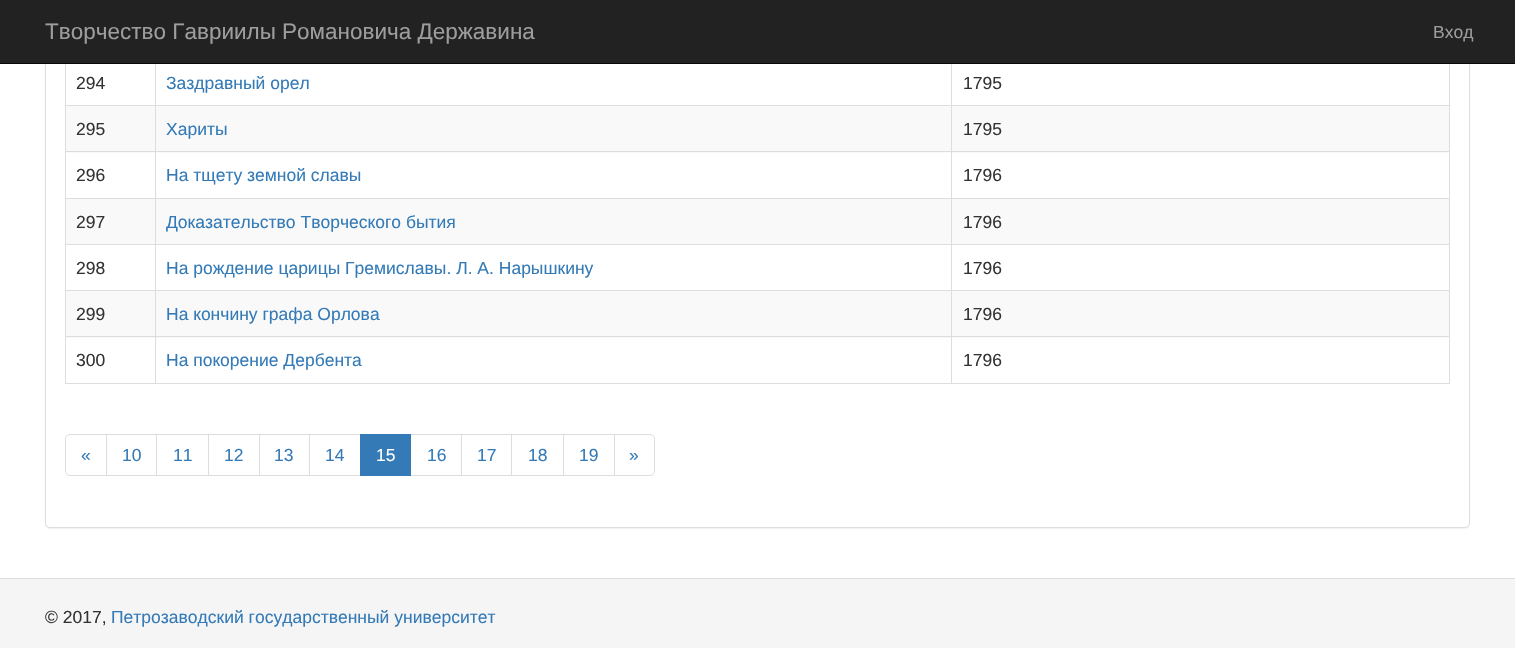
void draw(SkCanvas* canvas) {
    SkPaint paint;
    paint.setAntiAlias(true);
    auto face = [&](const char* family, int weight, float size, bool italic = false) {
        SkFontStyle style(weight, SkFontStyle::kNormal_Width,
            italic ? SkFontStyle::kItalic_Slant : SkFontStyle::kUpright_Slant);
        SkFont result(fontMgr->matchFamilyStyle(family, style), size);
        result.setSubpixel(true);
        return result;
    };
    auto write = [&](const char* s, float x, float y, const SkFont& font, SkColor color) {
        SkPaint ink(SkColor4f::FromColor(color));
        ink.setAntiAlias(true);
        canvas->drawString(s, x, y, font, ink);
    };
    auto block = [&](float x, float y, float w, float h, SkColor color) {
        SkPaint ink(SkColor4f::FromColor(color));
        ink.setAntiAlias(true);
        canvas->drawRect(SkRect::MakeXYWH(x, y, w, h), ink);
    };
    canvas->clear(SK_ColorWHITE);
    paint.setColor(SkColorSetARGB(13, 0, 0, 0));
    paint.setMaskFilter(SkMaskFilter::MakeBlur(kNormal_SkBlurStyle, 0.5f));
    canvas->drawRoundRect(SkRect::MakeXYWH(45, -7, 1425, 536), 5, 5, paint);
    paint.setMaskFilter(nullptr);
    paint.setColor(SK_ColorWHITE);
    canvas->drawRoundRect(SkRect::MakeXYWH(45.5f, -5.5f, 1424, 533), 4.5f, 4.5f, paint);
    paint.setStyle(SkPaint::kStroke_Style);
    paint.setStrokeWidth(1);
    paint.setColor(SkColorSetRGB(221, 221, 221));
    canvas->drawRoundRect(SkRect::MakeXYWH(45.5f, -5.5f, 1424, 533), 4.5f, 4.5f, paint);
    block(1449, 64, 1, 320, SkColorSetRGB(221, 221, 221));
    block(65, 383, 1385, 1, SkColorSetRGB(221, 221, 221));
    block(65, 64, 1, 320, SkColorSetRGB(221, 221, 221));
    block(951, 105, 499, 1, SkColorSetRGB(221, 221, 221));
    block(66, 106, 1383, 47, SkColorSetRGB(249, 249, 249));
    block(951, 151, 499, 1, SkColorSetRGB(221, 221, 221));
    block(951, 198, 499, 1, SkColorSetRGB(221, 221, 221));
    block(66, 199, 1383, 45, SkColorSetRGB(249, 249, 249));
    block(951, 244, 499, 1, SkColorSetRGB(221, 221, 221));
    block(951, 290, 499, 1, SkColorSetRGB(221, 221, 221));
    block(66, 291, 1383, 47, SkColorSetRGB(249, 249, 249));
    block(951, 336, 499, 1, SkColorSetRGB(221, 221, 221));
    block(951, 336, 1, 48, SkColorSetRGB(221, 221, 221));
    block(155, 336, 798, 1, SkColorSetRGB(221, 221, 221));
    block(951, 290, 1, 48, SkColorSetRGB(221, 221, 221));
    block(155, 290, 798, 1, SkColorSetRGB(221, 221, 221));
    block(951, 244, 1, 47, SkColorSetRGB(221, 221, 221));
    block(155, 244, 798, 1, SkColorSetRGB(221, 221, 221));
    block(951, 198, 1, 47, SkColorSetRGB(221, 221, 221));
    block(155, 198, 798, 1, SkColorSetRGB(221, 221, 221));
    block(951, 151, 1, 48, SkColorSetRGB(221, 221, 221));
    block(155, 151, 798, 1, SkColorSetRGB(221, 221, 221));
    block(951, 105, 1, 48, SkColorSetRGB(221, 221, 221));
    block(155, 105, 798, 1, SkColorSetRGB(221, 221, 221));
    block(155, 336, 1, 48, SkColorSetRGB(221, 221, 221));
    block(65, 336, 91, 1, SkColorSetRGB(221, 221, 221));
    block(155, 290, 1, 48, SkColorSetRGB(221, 221, 221));
    block(65, 290, 91, 1, SkColorSetRGB(221, 221, 221));
    block(155, 244, 1, 47, SkColorSetRGB(221, 221, 221));
    block(65, 244, 91, 1, SkColorSetRGB(221, 221, 221));
    block(155, 198, 1, 47, SkColorSetRGB(221, 221, 221));
    block(65, 198, 91, 1, SkColorSetRGB(221, 221, 221));
    block(155, 151, 1, 48, SkColorSetRGB(221, 221, 221));
    block(65, 151, 91, 1, SkColorSetRGB(221, 221, 221));
    block(155, 105, 1, 48, SkColorSetRGB(221, 221, 221));
    block(65, 105, 91, 1, SkColorSetRGB(221, 221, 221));
    block(155, 59, 1, 47, SkColorSetRGB(221, 221, 221));
    block(951, 59, 1, 47, SkColorSetRGB(221, 221, 221));
    block(0, 0, 1515, 63, SkColorSetRGB(34, 34, 34));
    block(0, 63, 1515, 1, SkColorSetRGB(8, 8, 8));
    auto kFont1 = face("Liberation Sans", 400, 22.5f);
    write("Творчество Гавриилы Романовича Державина", 45, 39, kFont1, SkColorSetRGB(157, 157, 157));
    auto kFont2 = face("Liberation Sans", 400, 17.5f);
    write("Вход", 1433, 38, kFont2, SkColorSetRGB(157, 157, 157));
    write("294", 76, 89, kFont2, SkColorSetRGB(51, 51, 51));
    write("Заздравный орел", 166, 89, kFont2, SkColorSetRGB(51, 122, 183));
    write("1795", 963, 89, kFont2, SkColorSetRGB(51, 51, 51));
    write("295", 76, 135, kFont2, SkColorSetRGB(51, 51, 51));
    write("Хариты", 166, 135, kFont2, SkColorSetRGB(51, 122, 183));
    write("1795", 963, 135, kFont2, SkColorSetRGB(51, 51, 51));
    write("296", 76, 181, kFont2, SkColorSetRGB(51, 51, 51));
    write("На тщету земной славы", 166, 181, kFont2, SkColorSetRGB(51, 122, 183));
    write("1796", 963, 181, kFont2, SkColorSetRGB(51, 51, 51));
    write("297", 76, 228, kFont2, SkColorSetRGB(51, 51, 51));
    write("Доказательство Творческого бытия", 166, 228, kFont2, SkColorSetRGB(51, 122, 183));
    write("1796", 963, 228, kFont2, SkColorSetRGB(51, 51, 51));
    write("298", 76, 274, kFont2, SkColorSetRGB(51, 51, 51));
    write("На рождение царицы Гремиславы. Л. А. Нарышкину", 166, 274, kFont2, SkColorSetRGB(51, 122, 183));
    write("1796", 963, 274, kFont2, SkColorSetRGB(51, 51, 51));
    write("299", 76, 320, kFont2, SkColorSetRGB(51, 51, 51));
    write("На кончину графа Орлова", 166, 320, kFont2, SkColorSetRGB(51, 122, 183));
    write("1796", 963, 320, kFont2, SkColorSetRGB(51, 51, 51));
    write("300", 76, 366, kFont2, SkColorSetRGB(51, 51, 51));
    write("На покорение Дербента", 166, 366, kFont2, SkColorSetRGB(51, 122, 183));
    write("1796", 963, 366, kFont2, SkColorSetRGB(51, 51, 51));
    canvas->drawPath(SkPathBuilder().moveTo(70, 434.5f).lineTo(107.5f, 434.5f).lineTo(107.5f, 475.5f).lineTo(70, 475.5f).cubicTo(67.5f, 475.5f, 65.5f, 473.5f, 65.5f, 471).lineTo(65.5f, 439).cubicTo(65.5f, 436.5f, 67.5f, 434.5f, 70, 434.5f).close().detach(), paint);
    write("«", 81, 461, kFont2, SkColorSetRGB(51, 122, 183));
    block(107, 435, 1, 40, SK_ColorWHITE);
    canvas->drawRect(SkRect::MakeXYWH(106.5f, 434.5f, 51, 41), paint);
    write("10", 122, 461, kFont2, SkColorSetRGB(51, 122, 183));
    block(157, 435, 1, 40, SK_ColorWHITE);
    canvas->drawRect(SkRect::MakeXYWH(156.5f, 434.5f, 52, 41), paint);
    write("11", 173, 461, kFont2, SkColorSetRGB(51, 122, 183));
    canvas->drawRect(SkRect::MakeXYWH(208.5f, 434.5f, 51, 41), paint);
    write("12", 224, 461, kFont2, SkColorSetRGB(51, 122, 183));
    canvas->drawRect(SkRect::MakeXYWH(259.5f, 434.5f, 50, 41), paint);
    write("13", 274, 461, kFont2, SkColorSetRGB(51, 122, 183));
    canvas->drawRect(SkRect::MakeXYWH(309.5f, 434.5f, 51, 41), paint);
    write("14", 325, 461, kFont2, SkColorSetRGB(51, 122, 183));
    canvas->drawRect(SkRect::MakeXYWH(410.5f, 434.5f, 52, 41), paint);
    block(360, 434, 51, 42, SkColorSetRGB(51, 122, 183));
    write("15", 376, 461, kFont2, SK_ColorWHITE);
    write("16", 427, 461, kFont2, SkColorSetRGB(51, 122, 183));
    block(462, 435, 1, 40, SK_ColorWHITE);
    canvas->drawRect(SkRect::MakeXYWH(461.5f, 434.5f, 51, 41), paint);
    write("17", 477, 461, kFont2, SkColorSetRGB(51, 122, 183));
    block(512, 435, 1, 40, SK_ColorWHITE);
    canvas->drawRect(SkRect::MakeXYWH(511.5f, 434.5f, 52, 41), paint);
    write("18", 528, 461, kFont2, SkColorSetRGB(51, 122, 183));
    canvas->drawRect(SkRect::MakeXYWH(563.5f, 434.5f, 51, 41), paint);
    write("19", 579, 461, kFont2, SkColorSetRGB(51, 122, 183));
    paint.setStyle(SkPaint::kFill_Style);
    paint.setColor(SK_ColorWHITE);
    canvas->drawPath(SkPathBuilder().moveTo(614.5f, 434.5f).lineTo(650, 434.5f).cubicTo(652.5f, 434.5f, 654.5f, 436.5f, 654.5f, 439).lineTo(654.5f, 471).cubicTo(654.5f, 473.5f, 652.5f, 475.5f, 650, 475.5f).lineTo(614.5f, 475.5f).close().detach(), paint);
    paint.setStyle(SkPaint::kStroke_Style);
    paint.setColor(SkColorSetRGB(221, 221, 221));
    canvas->drawPath(SkPathBuilder().moveTo(614.5f, 434.5f).lineTo(650, 434.5f).cubicTo(652.5f, 434.5f, 654.5f, 436.5f, 654.5f, 439).lineTo(654.5f, 471).cubicTo(654.5f, 473.5f, 652.5f, 475.5f, 650, 475.5f).lineTo(614.5f, 475.5f).close().detach(), paint);
    write("»", 629, 461, kFont2, SkColorSetRGB(51, 122, 183));
    block(0, 579, 1515, 69, SkColorSetRGB(245, 245, 245));
    block(0, 578, 1515, 1, SkColorSetRGB(221, 221, 221));
    write("© 2017,", 45, 623, kFont2, SkColorSetRGB(51, 51, 51));
    write("Петрозаводский государственный университет", 111, 623, kFont2, SkColorSetRGB(51, 122, 183));
}
